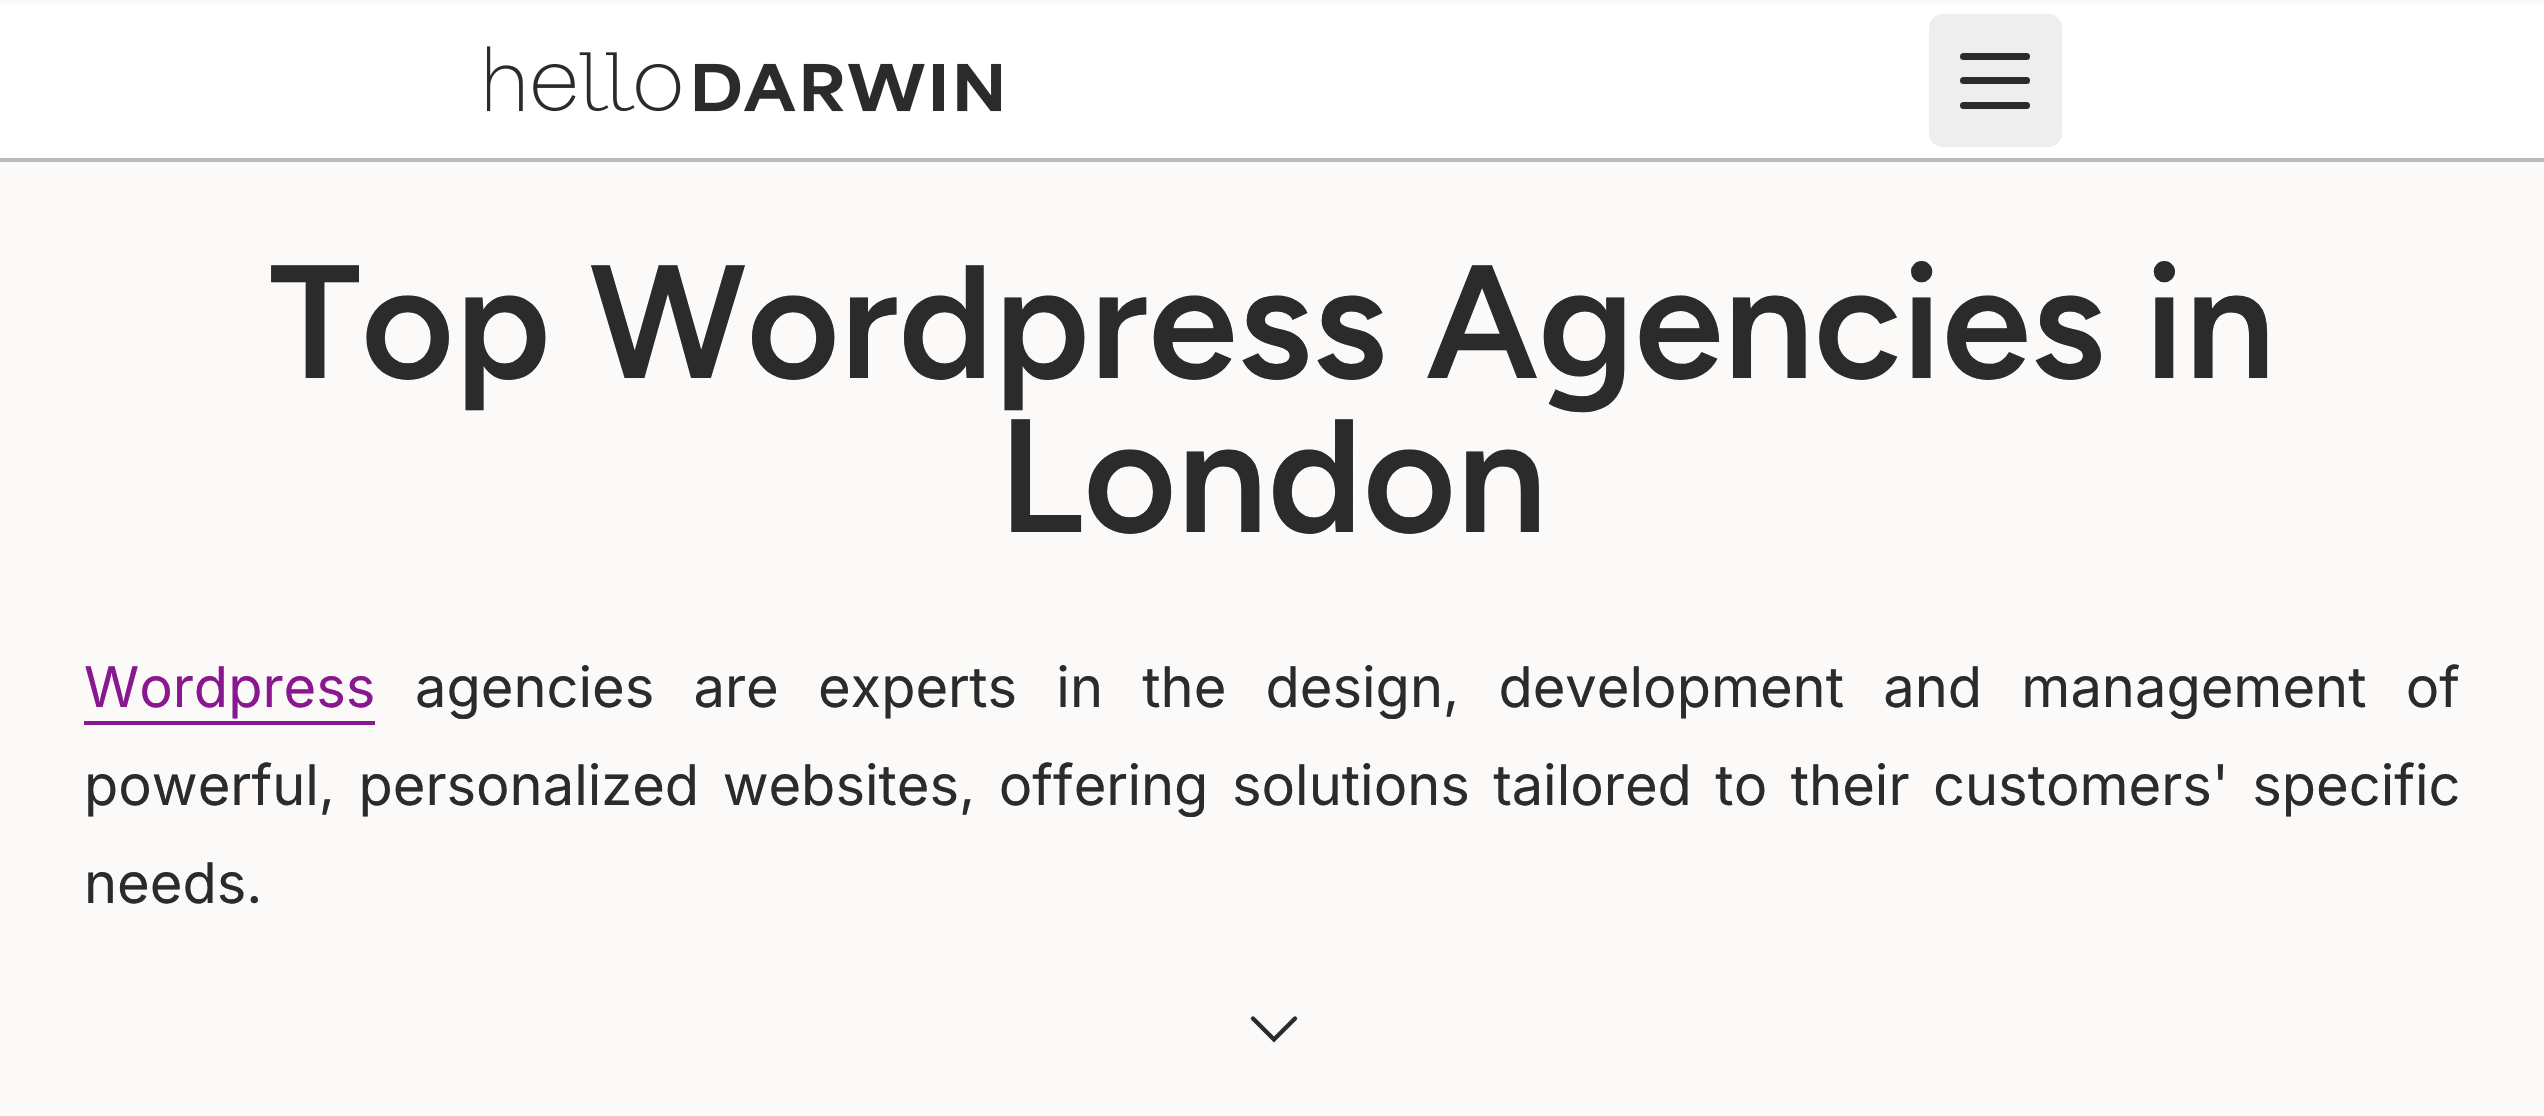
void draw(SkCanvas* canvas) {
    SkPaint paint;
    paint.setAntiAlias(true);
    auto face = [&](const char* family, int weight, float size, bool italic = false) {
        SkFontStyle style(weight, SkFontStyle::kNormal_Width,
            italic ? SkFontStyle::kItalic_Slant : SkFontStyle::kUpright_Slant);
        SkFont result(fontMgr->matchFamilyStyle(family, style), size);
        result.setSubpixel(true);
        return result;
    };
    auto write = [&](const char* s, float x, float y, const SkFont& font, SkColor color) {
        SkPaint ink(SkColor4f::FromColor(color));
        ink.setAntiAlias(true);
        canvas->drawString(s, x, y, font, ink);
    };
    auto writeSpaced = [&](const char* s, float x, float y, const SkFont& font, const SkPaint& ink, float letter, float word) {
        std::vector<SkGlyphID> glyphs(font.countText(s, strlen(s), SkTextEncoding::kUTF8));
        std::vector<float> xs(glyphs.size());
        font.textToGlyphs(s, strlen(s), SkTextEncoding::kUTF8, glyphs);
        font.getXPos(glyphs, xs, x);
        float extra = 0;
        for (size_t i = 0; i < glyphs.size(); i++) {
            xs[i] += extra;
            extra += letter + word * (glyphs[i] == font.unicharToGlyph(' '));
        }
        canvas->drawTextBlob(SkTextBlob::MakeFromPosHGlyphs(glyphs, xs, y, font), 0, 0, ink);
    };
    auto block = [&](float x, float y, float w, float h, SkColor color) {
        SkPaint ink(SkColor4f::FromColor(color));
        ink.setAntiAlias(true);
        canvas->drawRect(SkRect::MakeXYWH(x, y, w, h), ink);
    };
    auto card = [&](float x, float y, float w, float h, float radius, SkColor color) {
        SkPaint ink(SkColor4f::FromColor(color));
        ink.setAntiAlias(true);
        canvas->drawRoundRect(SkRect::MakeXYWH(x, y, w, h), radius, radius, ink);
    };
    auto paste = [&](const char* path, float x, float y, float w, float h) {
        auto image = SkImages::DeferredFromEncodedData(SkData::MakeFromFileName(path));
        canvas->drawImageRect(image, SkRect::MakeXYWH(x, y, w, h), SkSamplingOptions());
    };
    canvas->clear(SkColorSetRGB(252, 250, 248));
    block(0, 4, 2544, 154, SK_ColorWHITE);
    block(0, 158, 2544, 4, SkColorSetRGB(187, 187, 187));
    paste("pic1.png", 487, 46, 514, 66);
    paint.setColor(SkColorSetRGB(238, 238, 238));
    canvas->drawRoundRect(SkRect::MakeXYWH(1931, 16, 129, 129), 12, 12, paint);
    paint.setStyle(SkPaint::kStroke_Style);
    paint.setStrokeWidth(4);
    canvas->drawRoundRect(SkRect::MakeXYWH(1931, 16, 129, 129), 12, 12, paint);
    card(1960, 53, 70, 7, 3.5f, SkColorSetRGB(43, 43, 43));
    card(1960, 77, 70, 7, 3.5f, SkColorSetRGB(43, 43, 43));
    card(1960, 102, 70, 7, 3.5f, SkColorSetRGB(43, 43, 43));
    auto kFont1 = face("Figtree", 600, 161);
    write("Top Wordpress Agencies in", 269, 378, kFont1, SkColorSetRGB(43, 43, 43));
    write("London", 998, 532, kFont1, SkColorSetRGB(43, 43, 43));
    auto kFont2 = face("Inter", 400, 56);
    write("Wordpress", 84, 707, kFont2, SkColorSetRGB(137, 23, 143));
    block(84, 721, 291, 4, SkColorSetRGB(137, 23, 143));
    paint.setStyle(SkPaint::kFill_Style);
    paint.setColor(SkColorSetRGB(43, 43, 43));
    writeSpaced("agencies are experts in the design, development and management of", 415, 707, kFont2, paint, 0, 23.5f);
    writeSpaced("powerful, personalized websites, offering solutions tailored to their customers' specific", 84, 805, kFont2, paint, 0, 7.75f);
    write("needs.", 84, 903, kFont2, SkColorSetRGB(43, 43, 43));
    paint.setStyle(SkPaint::kStroke_Style);
    paint.setStrokeWidth(4.4f);
    paint.setStrokeCap(SkPaint::kRound_Cap);
    canvas->drawPath(SkPathBuilder().moveTo(1295, 1018.5f).lineTo(1274, 1039.5f).lineTo(1253, 1018.5f).detach(), paint);
}
